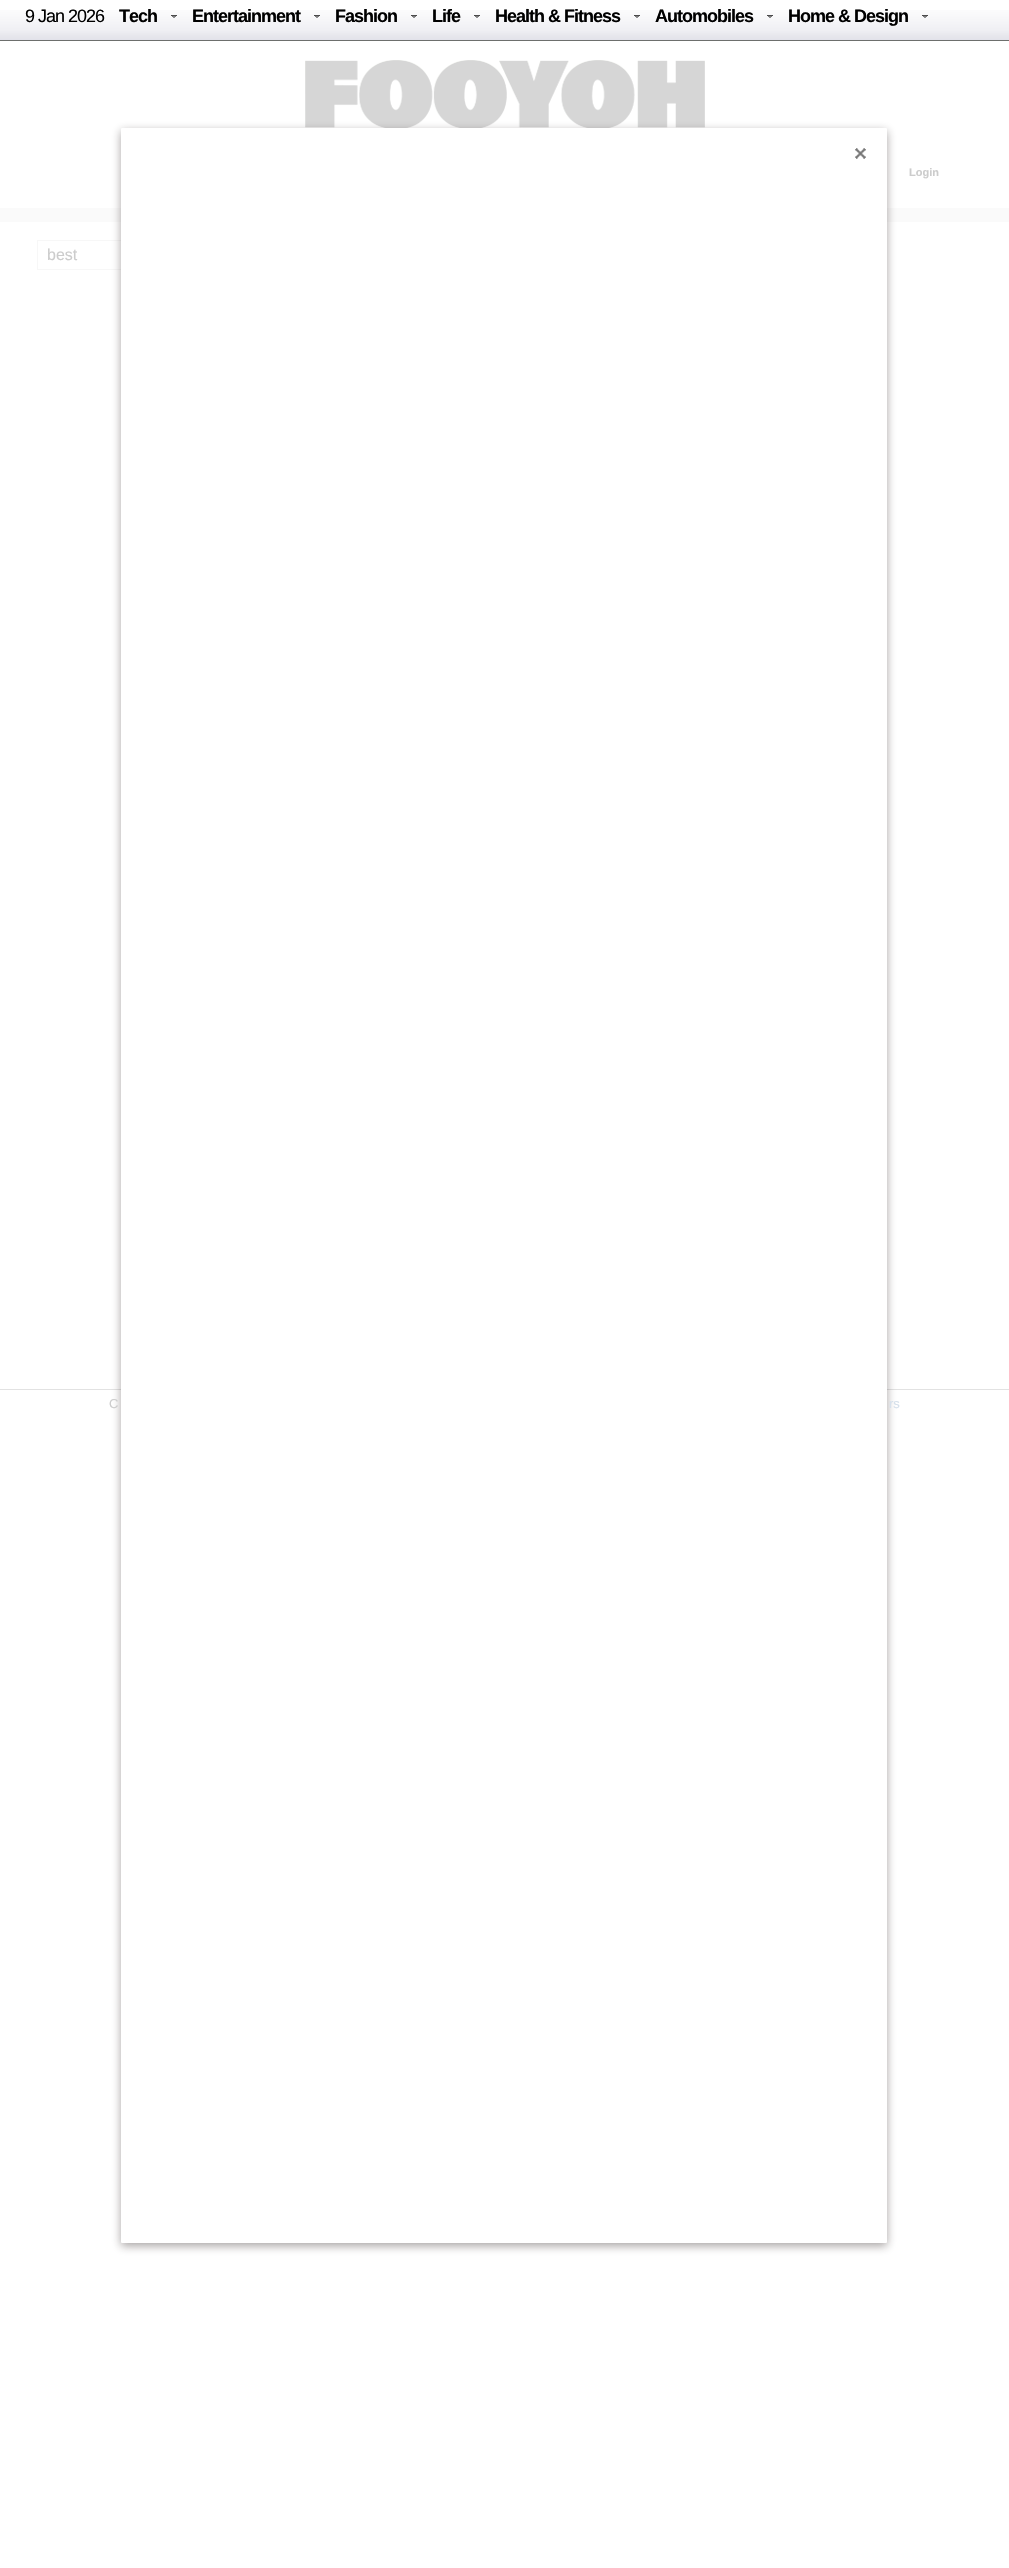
void draw(SkCanvas* canvas) {
    SkPaint paint;
    paint.setAntiAlias(true);
    auto face = [&](const char* family, int weight, float size, bool italic = false) {
        SkFontStyle style(weight, SkFontStyle::kNormal_Width,
            italic ? SkFontStyle::kItalic_Slant : SkFontStyle::kUpright_Slant);
        SkFont result(fontMgr->matchFamilyStyle(family, style), size);
        result.setSubpixel(true);
        return result;
    };
    auto write = [&](const char* s, float x, float y, const SkFont& font, SkColor color) {
        SkPaint ink(SkColor4f::FromColor(color));
        ink.setAntiAlias(true);
        canvas->drawString(s, x, y, font, ink);
    };
    auto writeSpaced = [&](const char* s, float x, float y, const SkFont& font, const SkPaint& ink, float letter, float word) {
        std::vector<SkGlyphID> glyphs(font.countText(s, strlen(s), SkTextEncoding::kUTF8));
        std::vector<float> xs(glyphs.size());
        font.textToGlyphs(s, strlen(s), SkTextEncoding::kUTF8, glyphs);
        font.getXPos(glyphs, xs, x);
        float extra = 0;
        for (size_t i = 0; i < glyphs.size(); i++) {
            xs[i] += extra;
            extra += letter + word * (glyphs[i] == font.unicharToGlyph(' '));
        }
        canvas->drawTextBlob(SkTextBlob::MakeFromPosHGlyphs(glyphs, xs, y, font), 0, 0, ink);
    };
    auto block = [&](float x, float y, float w, float h, SkColor color) {
        SkPaint ink(SkColor4f::FromColor(color));
        ink.setAntiAlias(true);
        canvas->drawRect(SkRect::MakeXYWH(x, y, w, h), ink);
    };
    auto card = [&](float x, float y, float w, float h, float radius, SkColor color) {
        SkPaint ink(SkColor4f::FromColor(color));
        ink.setAntiAlias(true);
        canvas->drawRoundRect(SkRect::MakeXYWH(x, y, w, h), radius, radius, ink);
    };
    auto paste = [&](const char* path, float x, float y, float w, float h) {
        auto image = SkImages::DeferredFromEncodedData(SkData::MakeFromFileName(path));
        canvas->drawImageRect(image, SkRect::MakeXYWH(x, y, w, h), SkSamplingOptions());
    };
    canvas->clear(SK_ColorWHITE);
    paste("pic1.png", 0, 10, 1009, 30);
    block(0, 40, 1009, 1, SkColorSetRGB(109, 111, 109));
    auto kFont1 = face("Liberation Sans", 400, 18);
    paint.setColor(SK_ColorBLACK);
    writeSpaced("9 Jan 2026", 25, 22, kFont1, paint, -1, 0);
    paste("pic2.png", 171, 15, 6, 3);
    auto kFont2 = face("Liberation Sans", 700, 18);
    writeSpaced("Tech", 119, 22, kFont2, paint, -1, 0);
    paste("pic2.png", 314, 15, 6, 3);
    writeSpaced("Entertainment", 192, 22, kFont2, paint, -1, 0);
    paste("pic2.png", 411, 15, 6, 3);
    writeSpaced("Fashion", 335, 22, kFont2, paint, -1, 0);
    paste("pic2.png", 474, 15, 6, 3);
    writeSpaced("Life", 432, 22, kFont2, paint, -1, 0);
    paste("pic2.png", 634, 15, 6, 3);
    writeSpaced("Health & Fitness", 495, 22, kFont2, paint, -1, 0);
    paste("pic2.png", 767, 15, 6, 3);
    writeSpaced("Automobiles", 655, 22, kFont2, paint, -1, 0);
    paste("pic2.png", 922, 15, 6, 3);
    writeSpaced("Home & Design", 788, 22, kFont2, paint, -1, 0);
    paste("pic3.png", 305, 60, 400, 68);
    block(0, 208, 1009, 14, SkColorSetRGB(250, 250, 250));
    paint.setStyle(SkPaint::kStroke_Style);
    paint.setStrokeWidth(1);
    paint.setColor(SkColorSetRGB(247, 247, 247));
    canvas->drawRect(SkRect::MakeXYWH(37.5f, 240.5f, 546, 29), paint);
    block(0, 1389, 1009, 1, SkColorSetRGB(226, 226, 226));
    paint.setStyle(SkPaint::kFill_Style);
    paint.setColor(SkColorSetARGB(102, 34, 25, 25));
    paint.setMaskFilter(SkMaskFilter::MakeBlur(kNormal_SkBlurStyle, 5));
    canvas->drawRoundRect(SkRect::MakeXYWH(121, 131, 766, 2115), 1, 1, paint);
    paint.setMaskFilter(nullptr);
    card(121, 128, 766, 2115, 1, SK_ColorWHITE);
    paste("pic4.png", 855, 148, 11, 11);
    auto kFont3 = face("Liberation Sans", 700, 11);
    write("Login", 909, 176, kFont3, SkColorSetRGB(204, 204, 204));
    auto kFont4 = face("Liberation Sans", 400, 16);
    write("best", 47, 260, kFont4, SkColorSetRGB(204, 204, 204));
    auto kFont5 = face("Liberation Sans", 400, 13);
    write("C", 109, 1408, kFont5, SkColorSetRGB(204, 204, 204));
    write("rs", 889, 1408, kFont5, SkColorSetRGB(214, 224, 235));
}
